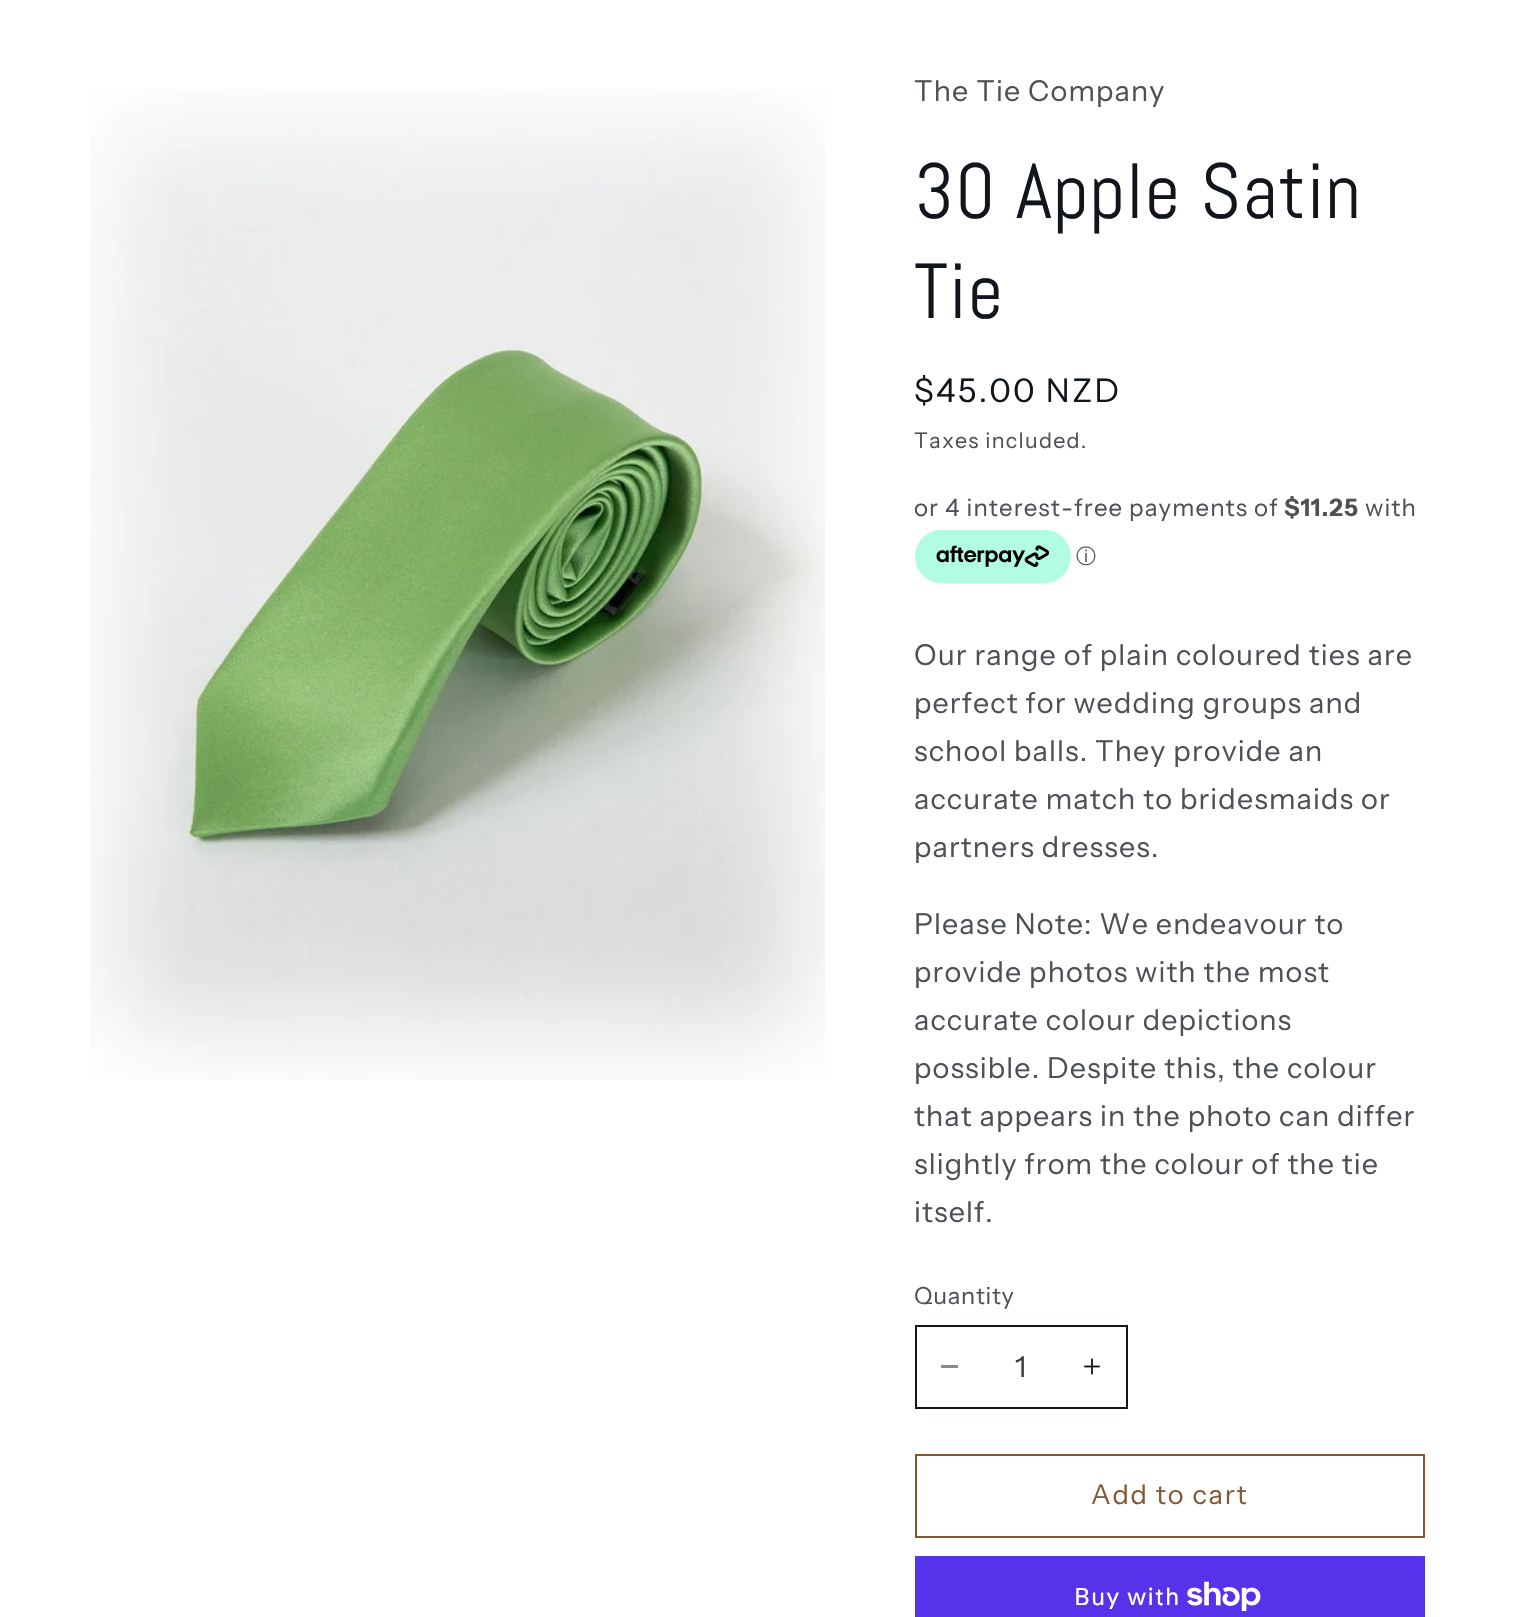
void draw(SkCanvas* canvas) {
    SkPaint paint;
    paint.setAntiAlias(true);
    auto face = [&](const char* family, int weight, float size, bool italic = false) {
        SkFontStyle style(weight, SkFontStyle::kNormal_Width,
            italic ? SkFontStyle::kItalic_Slant : SkFontStyle::kUpright_Slant);
        SkFont result(fontMgr->matchFamilyStyle(family, style), size);
        result.setSubpixel(true);
        return result;
    };
    auto write = [&](const char* s, float x, float y, const SkFont& font, SkColor color) {
        SkPaint ink(SkColor4f::FromColor(color));
        ink.setAntiAlias(true);
        canvas->drawString(s, x, y, font, ink);
    };
    auto writeSpaced = [&](const char* s, float x, float y, const SkFont& font, const SkPaint& ink, float letter, float word) {
        std::vector<SkGlyphID> glyphs(font.countText(s, strlen(s), SkTextEncoding::kUTF8));
        std::vector<float> xs(glyphs.size());
        font.textToGlyphs(s, strlen(s), SkTextEncoding::kUTF8, glyphs);
        font.getXPos(glyphs, xs, x);
        float extra = 0;
        for (size_t i = 0; i < glyphs.size(); i++) {
            xs[i] += extra;
            extra += letter + word * (glyphs[i] == font.unicharToGlyph(' '));
        }
        canvas->drawTextBlob(SkTextBlob::MakeFromPosHGlyphs(glyphs, xs, y, font), 0, 0, ink);
    };
    auto block = [&](float x, float y, float w, float h, SkColor color) {
        SkPaint ink(SkColor4f::FromColor(color));
        ink.setAntiAlias(true);
        canvas->drawRect(SkRect::MakeXYWH(x, y, w, h), ink);
    };
    auto paste = [&](const char* path, float x, float y, float w, float h) {
        auto image = SkImages::DeferredFromEncodedData(SkData::MakeFromFileName(path));
        canvas->drawImageRect(image, SkRect::MakeXYWH(x, y, w, h), SkSamplingOptions());
    };
    canvas->clear(SK_ColorWHITE);
    paste("pic1.png", 90, 89, 735, 991);
    auto kFont1 = face("Instrument Sans", 400, 28.75f);
    paint.setColor(SkColorSetRGB(77, 80, 85));
    writeSpaced("The Tie Company", 914, 101, kFont1, paint, 1.1f, 0);
    auto kFont2 = face("Abel", 400, 78);
    paint.setColor(SkColorSetRGB(17, 21, 28));
    writeSpaced("30 Apple Satin", 914, 218, kFont2, paint, 1.2f, 0);
    writeSpaced("Tie", 914, 318, kFont2, paint, 1.2f, 0);
    auto kFont3 = face("Instrument Sans", 400, 32.5f);
    writeSpaced("$45.00 NZD", 914, 402, kFont3, paint, 2.25f, 0);
    auto kFont4 = face("Instrument Sans", 400, 21.5f);
    paint.setColor(SkColorSetRGB(77, 80, 85));
    writeSpaced("Taxes included.", 914, 448, kFont4, paint, 1.25f, 0);
    auto kFont5 = face("Instrument Sans", 400, 24);
    writeSpaced("or 4 interest-free payments of", 914, 516, kFont5, paint, 1.1f, 0);
    auto kFont6 = face("Instrument Sans", 700, 24);
    writeSpaced("$11.25", 1284, 516, kFont6, paint, 1.1f, 0);
    writeSpaced("with", 1365, 516, kFont5, paint, 1.1f, 0);
    paste("pic2.png", 915, 530, 156, 54);
    auto kFont7 = face("WenQuanYi Zen Hei", 500, 20);
    write("ⓘ", 1076, 563, kFont7, SkColorSetRGB(77, 80, 85));
    writeSpaced("Our range of plain coloured ties are", 914, 665, kFont1, paint, 1.1f, 0);
    writeSpaced("perfect for wedding groups and", 914, 713, kFont1, paint, 1.1f, 0);
    writeSpaced("school balls. They provide an", 914, 761, kFont1, paint, 1.1f, 0);
    writeSpaced("accurate match to bridesmaids or", 914, 809, kFont1, paint, 1.1f, 0);
    writeSpaced("partners dresses.", 914, 857, kFont1, paint, 1.1f, 0);
    writeSpaced("Please Note: We endeavour to", 914, 934, kFont1, paint, 1.1f, 0);
    writeSpaced("provide photos with the most", 914, 982, kFont1, paint, 1.1f, 0);
    writeSpaced("accurate colour depictions", 914, 1030, kFont1, paint, 1.1f, 0);
    writeSpaced("possible. Despite this, the colour", 914, 1078, kFont1, paint, 1.1f, 0);
    writeSpaced("that appears in the photo can differ", 914, 1126, kFont1, paint, 1.1f, 0);
    writeSpaced("slightly from the colour of the tie", 914, 1174, kFont1, paint, 1.1f, 0);
    writeSpaced("itself.", 914, 1222, kFont1, paint, 1.1f, 0);
    auto kFont8 = face("Instrument Sans", 400, 23.5f);
    writeSpaced("Quantity", 914, 1304, kFont8, paint, 0.75f, 0);
    block(941, 1365, 17, 3, SkColorSetRGB(136, 138, 142));
    paste("pic3.png", 1083, 1358, 18, 17);
    paint.setStyle(SkPaint::kStroke_Style);
    paint.setStrokeWidth(2);
    paint.setColor(SkColorSetRGB(17, 21, 28));
    canvas->drawRect(SkRect::MakeXYWH(916, 1326, 211, 82), paint);
    write("1", 1015, 1377, kFont1, SkColorSetRGB(53, 56, 62));
    paint.setColor(SkColorSetRGB(133, 88, 50));
    canvas->drawRect(SkRect::MakeXYWH(916, 1455, 508, 82), paint);
    auto kFont9 = face("Instrument Sans", 400, 27);
    paint.setStyle(SkPaint::kFill_Style);
    writeSpaced("Add to cart", 1091, 1504, kFont9, paint, 1.75f, 0);
    block(915, 1556, 510, 61, SkColorSetRGB(84, 51, 235));
    auto kFont10 = face("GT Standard", 400, 24);
    paint.setColor(SK_ColorWHITE);
    writeSpaced("Buy with", 1074, 1605, kFont10, paint, 1.1f, 0);
    paste("pic4.png", 1187, 1581, 74, 30);
}
